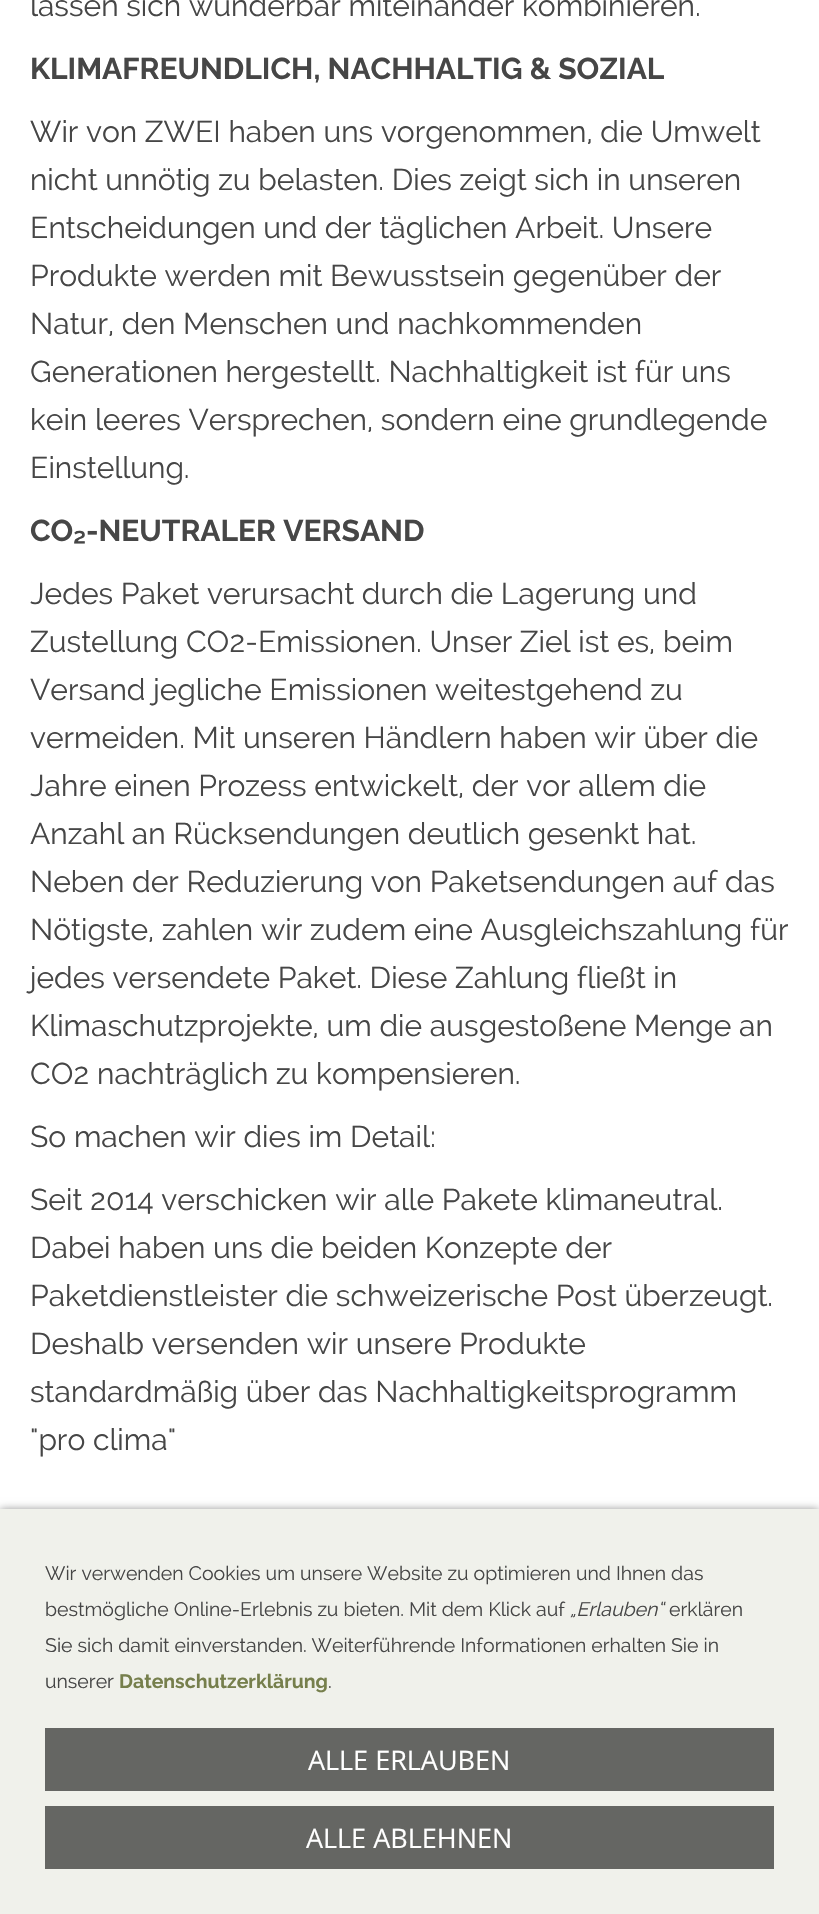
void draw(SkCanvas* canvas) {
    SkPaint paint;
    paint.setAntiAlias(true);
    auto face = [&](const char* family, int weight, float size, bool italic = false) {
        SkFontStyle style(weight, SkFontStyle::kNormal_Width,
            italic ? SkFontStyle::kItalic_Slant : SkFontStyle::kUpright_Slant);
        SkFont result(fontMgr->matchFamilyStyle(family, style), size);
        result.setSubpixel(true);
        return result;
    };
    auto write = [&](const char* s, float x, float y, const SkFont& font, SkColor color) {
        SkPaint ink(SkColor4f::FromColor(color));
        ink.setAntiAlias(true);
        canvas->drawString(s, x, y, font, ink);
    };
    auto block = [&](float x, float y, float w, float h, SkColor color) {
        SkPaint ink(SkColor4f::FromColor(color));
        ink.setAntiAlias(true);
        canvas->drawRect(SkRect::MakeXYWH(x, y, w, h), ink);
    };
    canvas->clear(SK_ColorWHITE);
    auto kFont1 = face("Raleway", 400, 30);
    write("lassen sich wunderbar miteinander kombinieren.", 30, 16, kFont1, SkColorSetRGB(70, 70, 70));
    auto kFont2 = face("Raleway", 700, 30);
    write("KLIMAFREUNDLICH, NACHHALTIG & SOZIAL", 30, 79, kFont2, SkColorSetRGB(70, 70, 70));
    write("Wir von ZWEI haben uns vorgenommen, die Umwelt", 30, 142, kFont1, SkColorSetRGB(70, 70, 70));
    write("nicht unnötig zu belasten. Dies zeigt sich in unseren", 30, 190, kFont1, SkColorSetRGB(70, 70, 70));
    write("Entscheidungen und der täglichen Arbeit. Unsere", 30, 238, kFont1, SkColorSetRGB(70, 70, 70));
    write("Produkte werden mit Bewusstsein gegenüber der", 30, 286, kFont1, SkColorSetRGB(70, 70, 70));
    write("Natur, den Menschen und nachkommenden", 30, 334, kFont1, SkColorSetRGB(70, 70, 70));
    write("Generationen hergestellt. Nachhaltigkeit ist für uns", 30, 382, kFont1, SkColorSetRGB(70, 70, 70));
    write("kein leeres Versprechen, sondern eine grundlegende", 30, 430, kFont1, SkColorSetRGB(70, 70, 70));
    write("Einstellung.", 30, 478, kFont1, SkColorSetRGB(70, 70, 70));
    write("CO₂-NEUTRALER VERSAND", 30, 541, kFont2, SkColorSetRGB(70, 70, 70));
    write("Jedes Paket verursacht durch die Lagerung und", 30, 604, kFont1, SkColorSetRGB(70, 70, 70));
    write("Zustellung CO2-Emissionen. Unser Ziel ist es, beim", 30, 652, kFont1, SkColorSetRGB(70, 70, 70));
    write("Versand jegliche Emissionen weitestgehend zu", 30, 700, kFont1, SkColorSetRGB(70, 70, 70));
    write("vermeiden. Mit unseren Händlern haben wir über die", 30, 748, kFont1, SkColorSetRGB(70, 70, 70));
    write("Jahre einen Prozess entwickelt, der vor allem die", 30, 796, kFont1, SkColorSetRGB(70, 70, 70));
    write("Anzahl an Rücksendungen deutlich gesenkt hat.", 30, 844, kFont1, SkColorSetRGB(70, 70, 70));
    write("Neben der Reduzierung von Paketsendungen auf das", 30, 892, kFont1, SkColorSetRGB(70, 70, 70));
    write("Nötigste, zahlen wir zudem eine Ausgleichszahlung für", 30, 940, kFont1, SkColorSetRGB(70, 70, 70));
    write("jedes versendete Paket. Diese Zahlung fließt in", 30, 988, kFont1, SkColorSetRGB(70, 70, 70));
    write("Klimaschutzprojekte, um die ausgestoßene Menge an", 30, 1036, kFont1, SkColorSetRGB(70, 70, 70));
    write("CO2 nachträglich zu kompensieren.", 30, 1084, kFont1, SkColorSetRGB(70, 70, 70));
    write("So machen wir dies im Detail:", 30, 1147, kFont1, SkColorSetRGB(70, 70, 70));
    write("Seit 2014 verschicken wir alle Pakete klimaneutral.", 30, 1210, kFont1, SkColorSetRGB(70, 70, 70));
    write("Dabei haben uns die beiden Konzepte der", 30, 1258, kFont1, SkColorSetRGB(70, 70, 70));
    write("Paketdienstleister die schweizerische Post überzeugt.", 30, 1306, kFont1, SkColorSetRGB(70, 70, 70));
    write("Deshalb versenden wir unsere Produkte", 30, 1354, kFont1, SkColorSetRGB(70, 70, 70));
    write("standardmäßig über das Nachhaltigkeitsprogramm", 30, 1402, kFont1, SkColorSetRGB(70, 70, 70));
    write("\"pro clima\"", 30, 1450, kFont1, SkColorSetRGB(70, 70, 70));
    paint.setColor(SkColorSetARGB(102, 0, 0, 0));
    paint.setMaskFilter(SkMaskFilter::MakeBlur(kNormal_SkBlurStyle, 4));
    canvas->drawRect(SkRect::MakeXYWH(0, 1509, 819, 405), paint);
    paint.setMaskFilter(nullptr);
    block(0, 1509, 819, 405, SkColorSetRGB(240, 241, 235));
    auto kFont3 = face("Raleway", 400, 19.5f);
    write("Wir verwenden Cookies um unsere Website zu optimieren und Ihnen das", 45, 1580, kFont3, SkColorSetRGB(70, 70, 70));
    write("bestmögliche Online-Erlebnis zu bieten. Mit dem Klick auf", 45, 1616, kFont3, SkColorSetRGB(70, 70, 70));
    auto kFont4 = face("Raleway", 400, 19.5f, true);
    write("„Erlauben“", 570, 1616, kFont4, SkColorSetRGB(70, 70, 70));
    write("erklären", 669, 1616, kFont3, SkColorSetRGB(70, 70, 70));
    write("Sie sich damit einverstanden. Weiterführende Informationen erhalten Sie in", 45, 1652, kFont3, SkColorSetRGB(70, 70, 70));
    write("unserer", 45, 1688, kFont3, SkColorSetRGB(70, 70, 70));
    auto kFont5 = face("Raleway", 700, 19.5f);
    write("Datenschutzerklärung", 119, 1688, kFont5, SkColorSetRGB(118, 127, 76));
    write(".", 328, 1688, kFont3, SkColorSetRGB(70, 70, 70));
    block(45, 1728, 729, 63, SkColorSetRGB(101, 102, 99));
    auto kFont6 = face("Open Sans", 400, 27);
    write("ALLE ERLAUBEN", 308, 1770, kFont6, SK_ColorWHITE);
    block(45, 1806, 729, 63, SkColorSetRGB(101, 102, 99));
    write("ALLE ABLEHNEN", 306, 1848, kFont6, SK_ColorWHITE);
}
